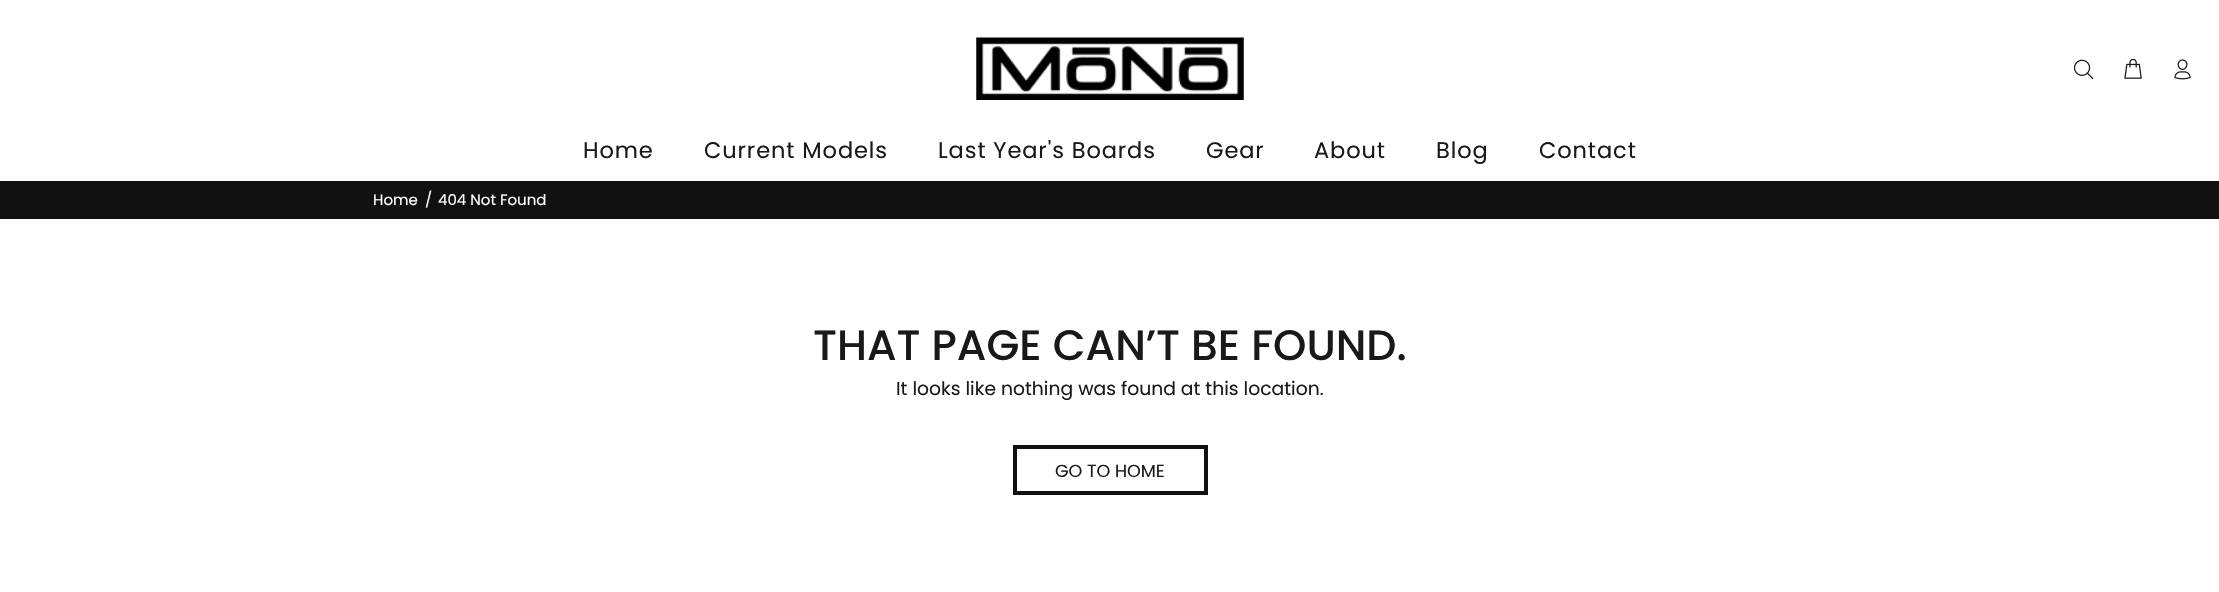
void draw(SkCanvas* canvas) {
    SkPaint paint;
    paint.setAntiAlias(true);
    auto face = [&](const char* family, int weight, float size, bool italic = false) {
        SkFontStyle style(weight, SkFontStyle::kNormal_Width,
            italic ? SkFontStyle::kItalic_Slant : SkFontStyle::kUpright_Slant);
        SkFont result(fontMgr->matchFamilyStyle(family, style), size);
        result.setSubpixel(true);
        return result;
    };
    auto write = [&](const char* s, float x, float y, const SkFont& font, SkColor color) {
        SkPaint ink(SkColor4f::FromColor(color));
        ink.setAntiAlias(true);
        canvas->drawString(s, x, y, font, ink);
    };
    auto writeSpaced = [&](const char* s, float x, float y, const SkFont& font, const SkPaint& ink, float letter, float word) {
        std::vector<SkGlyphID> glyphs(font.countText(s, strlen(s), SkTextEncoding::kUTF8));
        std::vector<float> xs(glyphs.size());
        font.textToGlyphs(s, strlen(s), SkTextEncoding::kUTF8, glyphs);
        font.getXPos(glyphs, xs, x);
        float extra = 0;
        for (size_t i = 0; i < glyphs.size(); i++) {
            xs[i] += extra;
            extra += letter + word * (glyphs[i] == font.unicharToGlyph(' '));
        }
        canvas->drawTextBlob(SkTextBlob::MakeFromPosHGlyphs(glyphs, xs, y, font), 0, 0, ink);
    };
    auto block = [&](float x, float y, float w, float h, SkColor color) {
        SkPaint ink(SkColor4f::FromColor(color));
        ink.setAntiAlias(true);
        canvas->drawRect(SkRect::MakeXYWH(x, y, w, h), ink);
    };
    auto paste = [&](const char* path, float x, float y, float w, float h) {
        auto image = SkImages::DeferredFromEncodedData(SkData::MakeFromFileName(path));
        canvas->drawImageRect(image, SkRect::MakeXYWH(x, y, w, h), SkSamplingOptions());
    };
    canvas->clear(SK_ColorWHITE);
    paste("pic1.png", 976, 37, 268, 63);
    paste("pic2.png", 2073, 59, 21, 21);
    paste("pic3.png", 2124, 58, 18, 21);
    paste("pic4.png", 2174, 59, 17, 21);
    auto kFont1 = face("Poppins", 400, 22.5f);
    paint.setColor(SkColorSetRGB(25, 25, 25));
    writeSpaced("Home", 583, 158, kFont1, paint, 0.9f, 0);
    writeSpaced("Current Models", 704, 158, kFont1, paint, 0.9f, 0);
    writeSpaced("Last Year's Boards", 938, 158, kFont1, paint, 0.9f, 0);
    writeSpaced("Gear", 1206, 158, kFont1, paint, 0.9f, 0);
    writeSpaced("About", 1314, 158, kFont1, paint, 0.9f, 0);
    writeSpaced("Blog", 1436, 158, kFont1, paint, 0.9f, 0);
    writeSpaced("Contact", 1539, 158, kFont1, paint, 0.9f, 0);
    block(0, 181, 2219, 38, SkColorSetRGB(17, 17, 17));
    auto kFont2 = face("Poppins", 400, 15);
    write("Home", 373, 205, kFont2, SK_ColorWHITE);
    write("/", 425, 205, kFont2, SK_ColorWHITE);
    write("404 Not Found", 438, 205, kFont2, SK_ColorWHITE);
    auto kFont3 = face("Poppins", 500, 42.5f);
    write("THAT PAGE CAN’T BE FOUND.", 813, 360, kFont3, SkColorSetRGB(25, 25, 25));
    auto kFont4 = face("Poppins", 400, 18.75f);
    write("It looks like nothing was found at this location.", 896, 395, kFont4, SkColorSetRGB(25, 25, 25));
    paint.setStyle(SkPaint::kStroke_Style);
    paint.setStrokeWidth(4);
    paint.setColor(SkColorSetRGB(17, 17, 17));
    canvas->drawRect(SkRect::MakeXYWH(1015, 447, 191, 46), paint);
    auto kFont5 = face("Poppins", 400, 17.5f);
    write("GO TO HOME", 1055, 477, kFont5, SkColorSetRGB(25, 25, 25));
}
